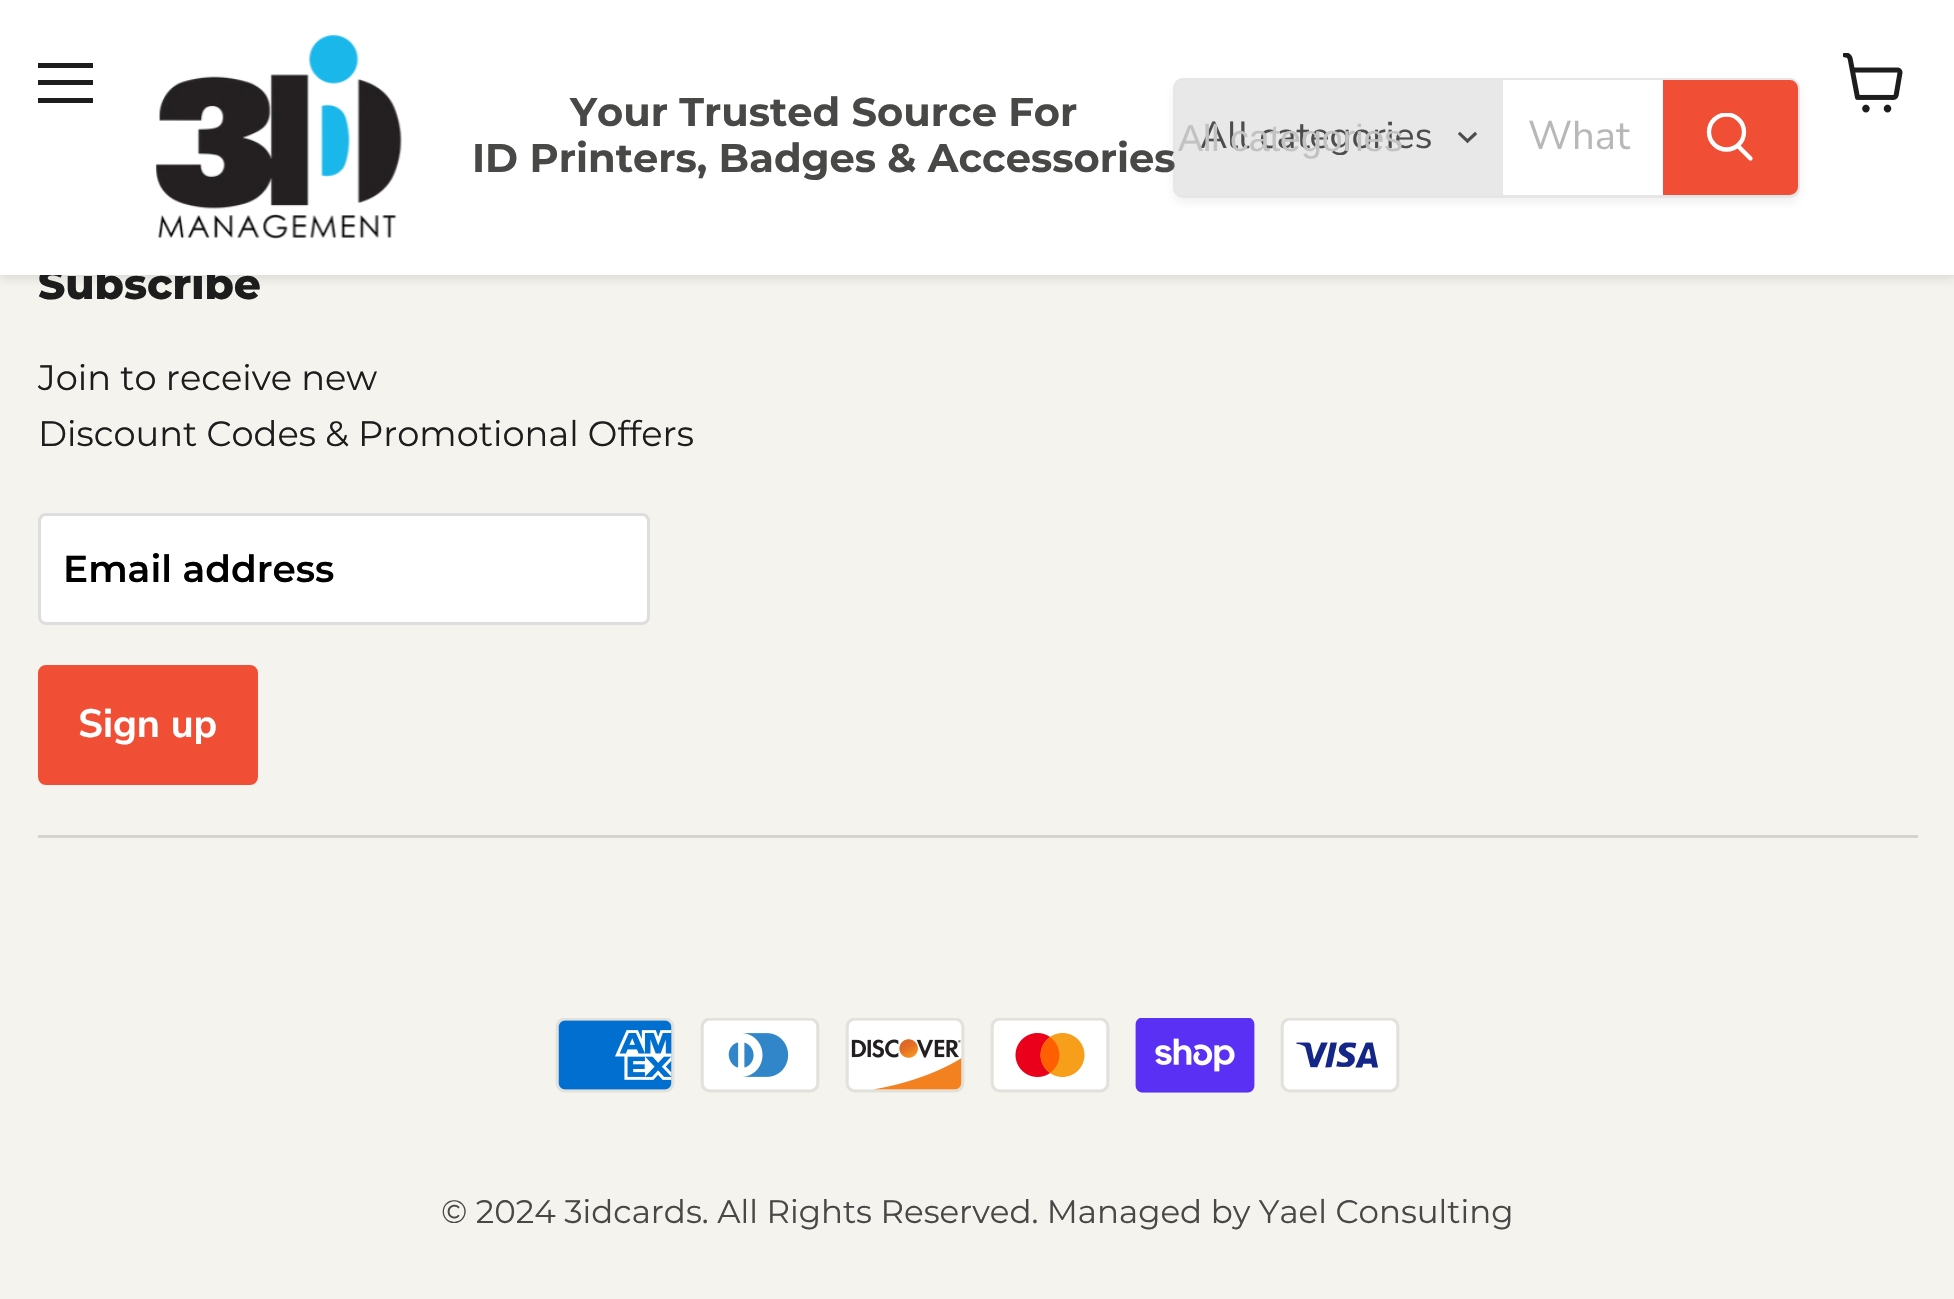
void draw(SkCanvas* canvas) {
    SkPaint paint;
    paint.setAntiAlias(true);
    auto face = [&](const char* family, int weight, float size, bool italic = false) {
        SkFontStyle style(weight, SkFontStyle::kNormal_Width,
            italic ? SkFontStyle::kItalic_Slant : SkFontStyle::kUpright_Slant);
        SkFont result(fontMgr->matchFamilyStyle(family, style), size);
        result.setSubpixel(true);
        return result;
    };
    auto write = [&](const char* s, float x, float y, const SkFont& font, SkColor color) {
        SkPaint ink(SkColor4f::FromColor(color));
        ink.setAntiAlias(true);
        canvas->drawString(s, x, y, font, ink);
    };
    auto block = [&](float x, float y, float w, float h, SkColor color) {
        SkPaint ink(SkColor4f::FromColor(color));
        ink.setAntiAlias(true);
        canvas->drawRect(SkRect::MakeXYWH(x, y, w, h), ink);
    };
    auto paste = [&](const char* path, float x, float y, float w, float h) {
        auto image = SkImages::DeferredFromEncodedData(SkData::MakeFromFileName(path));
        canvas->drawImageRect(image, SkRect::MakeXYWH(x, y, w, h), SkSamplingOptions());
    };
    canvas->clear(SkColorSetRGB(245, 243, 237));
    paint.setColor(SkColorSetARGB(64, 128, 128, 128));
    paint.setMaskFilter(SkMaskFilter::MakeBlur(kNormal_SkBlurStyle, 5));
    canvas->drawRect(SkRect::MakeXYWH(0, 3, 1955, 275), paint);
    paint.setMaskFilter(nullptr);
    auto kFont1 = face("Montserrat", 800, 42.25f);
    write("Subscribe", 38, 299, kFont1, SkColorSetRGB(29, 29, 29));
    block(0, 0, 1954, 275, SK_ColorWHITE);
    block(38, 63, 55, 5, SkColorSetRGB(29, 29, 29));
    block(38, 80, 55, 5, SkColorSetRGB(29, 29, 29));
    block(38, 98, 55, 5, SkColorSetRGB(29, 29, 29));
    paste("pic1.png", 1843, 53, 60, 60);
    paste("pic2.png", 155, 34, 247, 205);
    auto kFont2 = face("Montserrat", 700, 40);
    write("Your Trusted Source For", 570, 126, kFont2, SkColorSetRGB(72, 72, 71));
    write("ID Printers, Badges & Accessories", 472, 172, kFont2, SkColorSetRGB(72, 72, 71));
    canvas->save();
    canvas->clipPath(SkPathBuilder(SkPathFillType::kEvenOdd).moveTo(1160, 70).lineTo(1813, 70).lineTo(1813, 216).lineTo(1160, 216).close().moveTo(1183, 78).lineTo(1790, 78).cubicTo(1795.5f, 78, 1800, 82.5f, 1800, 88).lineTo(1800, 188).cubicTo(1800, 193.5f, 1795.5f, 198, 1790, 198).lineTo(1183, 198).cubicTo(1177.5f, 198, 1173, 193.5f, 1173, 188).lineTo(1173, 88).cubicTo(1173, 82.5f, 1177.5f, 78, 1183, 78).close().detach(), true);
    paint.setColor(SkColorSetARGB(28, 128, 128, 128));
    paint.setMaskFilter(SkMaskFilter::MakeBlur(kNormal_SkBlurStyle, 4));
    canvas->drawRoundRect(SkRect::MakeXYWH(1173, 83, 627, 120), 10, 10, paint);
    paint.setMaskFilter(nullptr);
    canvas->restore();
    paint.setStyle(SkPaint::kStroke_Style);
    paint.setStrokeWidth(3);
    paint.setColor(SkColorSetARGB(51, 128, 128, 128));
    canvas->drawRoundRect(SkRect::MakeXYWH(1174.5f, 79.5f, 624, 117), 8.5f, 8.5f, paint);
    paint.setStyle(SkPaint::kFill_Style);
    paint.setColor(SkColorSetRGB(232, 232, 232));
    canvas->drawPath(SkPathBuilder().moveTo(1183, 80).lineTo(1503, 80).lineTo(1503, 195).lineTo(1183, 195).cubicTo(1178.5f, 195, 1175, 191.5f, 1175, 187).lineTo(1175, 88).cubicTo(1175, 83.5f, 1178.5f, 80, 1183, 80).close().detach(), paint);
    auto kFont3 = face("Nunito Sans", 400, 37.5f);
    write("All categories", 1200, 148, kFont3, SkColorSetRGB(77, 77, 77));
    auto kFont4 = face("Liberation Sans", 400, 37.5f);
    write("All categories", 1178, 151, kFont4, SkColorSetRGB(194, 194, 194));
    paint.setStyle(SkPaint::kStroke_Style);
    paint.setStrokeWidth(3.1f);
    paint.setStrokeCap(SkPaint::kSquare_Cap);
    paint.setColor(SkColorSetRGB(77, 77, 77));
    canvas->drawPath(SkPathBuilder().moveTo(1467.5f, 141).lineTo(1475, 134).moveTo(1467.5f, 141).lineTo(1460, 134).detach(), paint);
    block(1503, 80, 160, 1, SK_ColorWHITE);
    auto kFont5 = face("Nunito Sans", 400, 40);
    write("What", 1528, 149, kFont5, SkColorSetRGB(184, 184, 184));
    paint.setStyle(SkPaint::kFill_Style);
    paint.setColor(SkColorSetRGB(240, 79, 54));
    canvas->drawPath(SkPathBuilder().moveTo(1664.5f, 81.5f).lineTo(1790, 81.5f).cubicTo(1793.5f, 81.5f, 1796.5f, 84.5f, 1796.5f, 88).lineTo(1796.5f, 187).cubicTo(1796.5f, 190.5f, 1793.5f, 193.5f, 1790, 193.5f).lineTo(1664.5f, 193.5f).close().detach(), paint);
    paint.setStyle(SkPaint::kStroke_Style);
    paint.setStrokeWidth(3);
    paint.setStrokeCap(SkPaint::kButt_Cap);
    canvas->drawPath(SkPathBuilder().moveTo(1664.5f, 81.5f).lineTo(1790, 81.5f).cubicTo(1793.5f, 81.5f, 1796.5f, 84.5f, 1796.5f, 88).lineTo(1796.5f, 187).cubicTo(1796.5f, 190.5f, 1793.5f, 193.5f, 1790, 193.5f).lineTo(1664.5f, 193.5f).close().detach(), paint);
    paint.setStrokeWidth(4.3f);
    paint.setStrokeCap(SkPaint::kRound_Cap);
    paint.setColor(SK_ColorWHITE);
    canvas->drawPath(SkPathBuilder().moveTo(1750.5f, 158.5f).lineTo(1738.5f, 146.5f).detach(), paint);
    canvas->save();
    canvas->clipRect(SkRect::MakeXYWH(1705, 113, 50, 52));
    paint.setStrokeCap(SkPaint::kButt_Cap);
    canvas->drawCircle(1726.5f, 132, 17.5f, paint);
    canvas->restore();
    block(38, 835, 1880, 3, SkColorSetRGB(213, 211, 206));
    auto kFont6 = face("Montserrat", 400, 35.2f);
    write("Join to receive new", 38, 390, kFont6, SkColorSetRGB(29, 29, 29));
    write("Discount Codes & Promotional Offers", 38, 446, kFont6, SkColorSetRGB(29, 29, 29));
    paint.setStyle(SkPaint::kFill_Style);
    canvas->drawRoundRect(SkRect::MakeXYWH(39.5f, 514.5f, 609, 109), 6.5f, 6.5f, paint);
    paint.setStyle(SkPaint::kStroke_Style);
    paint.setStrokeWidth(3);
    paint.setColor(SkColorSetRGB(221, 221, 221));
    canvas->drawRoundRect(SkRect::MakeXYWH(39.5f, 514.5f, 609, 109), 6.5f, 6.5f, paint);
    auto kFont7 = face("Montserrat", 600, 37.5f);
    write("Email address", 63, 582, kFont7, SK_ColorBLACK);
    paint.setStyle(SkPaint::kFill_Style);
    paint.setColor(SkColorSetRGB(240, 79, 54));
    canvas->drawRoundRect(SkRect::MakeXYWH(39.5f, 666.5f, 217, 117), 6.5f, 6.5f, paint);
    paint.setStyle(SkPaint::kStroke_Style);
    canvas->drawRoundRect(SkRect::MakeXYWH(39.5f, 666.5f, 217, 117), 6.5f, 6.5f, paint);
    auto kFont8 = face("Nunito Sans", 700, 39.5f);
    write("Sign up", 78, 737, kFont8, SK_ColorWHITE);
    paste("pic3.png", 555, 1018, 120, 75);
    paste("pic4.png", 700, 1018, 120, 75);
    paste("pic5.png", 845, 1018, 120, 75);
    paste("pic6.png", 990, 1018, 120, 75);
    paste("pic7.png", 1135, 1018, 120, 75);
    paste("pic8.png", 1280, 1018, 120, 75);
    auto kFont9 = face("Montserrat", 400, 32.5f);
    write("© 2024 3idcards. All Rights Reserved. Managed by Yael Consulting", 441, 1223, kFont9, SkColorSetRGB(72, 72, 71));
}
